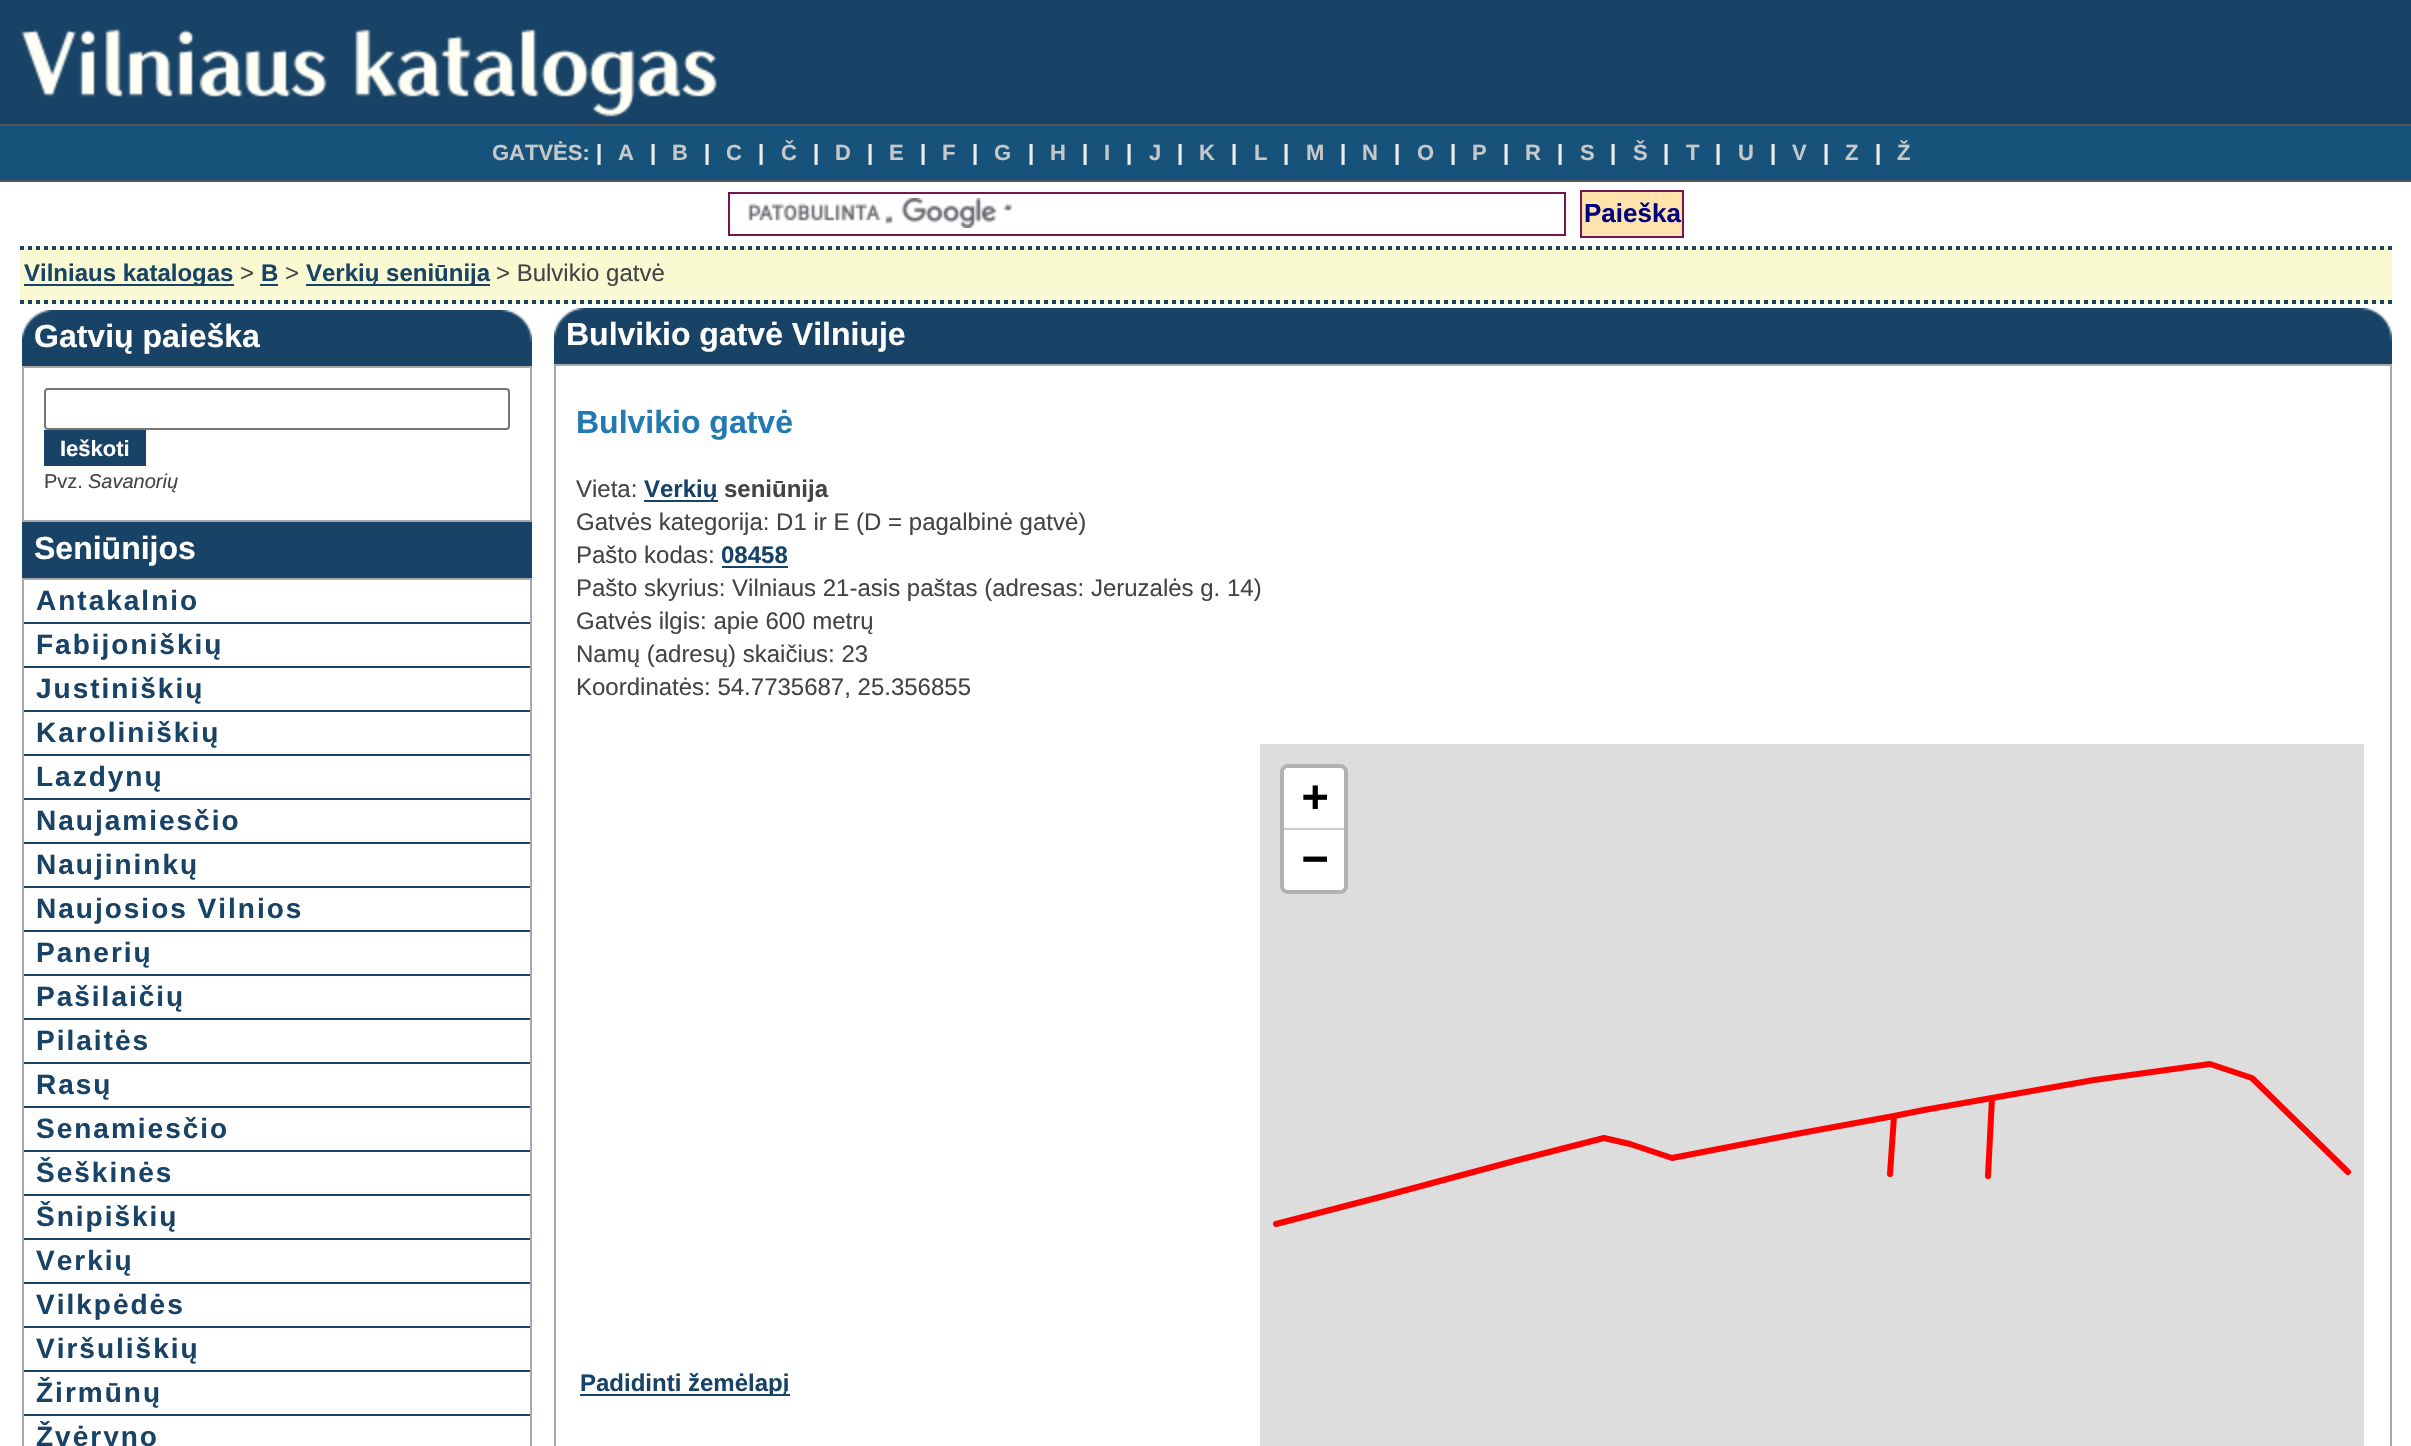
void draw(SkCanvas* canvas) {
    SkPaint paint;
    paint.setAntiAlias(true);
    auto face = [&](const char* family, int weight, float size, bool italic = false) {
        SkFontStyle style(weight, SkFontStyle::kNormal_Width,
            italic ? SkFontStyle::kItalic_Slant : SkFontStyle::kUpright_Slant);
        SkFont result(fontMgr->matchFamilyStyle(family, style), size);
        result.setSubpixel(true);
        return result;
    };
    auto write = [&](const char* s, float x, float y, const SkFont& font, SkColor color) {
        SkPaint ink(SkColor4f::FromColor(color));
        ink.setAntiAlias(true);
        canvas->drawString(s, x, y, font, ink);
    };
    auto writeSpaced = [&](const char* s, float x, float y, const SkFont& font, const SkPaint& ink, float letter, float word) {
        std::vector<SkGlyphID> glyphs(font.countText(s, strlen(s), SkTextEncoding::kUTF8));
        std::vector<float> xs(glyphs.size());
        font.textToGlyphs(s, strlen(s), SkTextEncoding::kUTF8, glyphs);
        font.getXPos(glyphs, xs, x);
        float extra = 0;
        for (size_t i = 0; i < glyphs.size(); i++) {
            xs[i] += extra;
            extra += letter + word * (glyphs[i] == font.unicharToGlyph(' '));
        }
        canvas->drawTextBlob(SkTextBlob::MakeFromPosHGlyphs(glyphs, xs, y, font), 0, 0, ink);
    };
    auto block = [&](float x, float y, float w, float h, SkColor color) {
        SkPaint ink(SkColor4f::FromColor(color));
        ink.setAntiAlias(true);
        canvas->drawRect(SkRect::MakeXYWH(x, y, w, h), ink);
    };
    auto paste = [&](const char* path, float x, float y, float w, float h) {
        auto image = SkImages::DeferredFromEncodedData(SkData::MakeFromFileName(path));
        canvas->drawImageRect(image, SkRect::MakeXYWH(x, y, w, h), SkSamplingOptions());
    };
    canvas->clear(SK_ColorWHITE);
    block(0, 0, 2411, 124, SkColorSetRGB(24, 67, 102));
    paste("pic1.png", 21, 29, 696, 88);
    block(0, 126, 2411, 54, SkColorSetRGB(22, 82, 121));
    block(0, 124, 2411, 2, SkColorSetRGB(85, 85, 85));
    block(0, 180, 2411, 2, SkColorSetRGB(85, 85, 85));
    auto kFont1 = face("Liberation Sans", 700, 22);
    write("GATVĖS:", 492, 160, kFont1, SkColorSetRGB(198, 200, 201));
    write("|", 596, 160, kFont1, SkColorSetRGB(238, 238, 238));
    write("A", 618, 160, kFont1, SkColorSetRGB(198, 200, 201));
    write("|", 650, 160, kFont1, SkColorSetRGB(238, 238, 238));
    write("B", 672, 160, kFont1, SkColorSetRGB(198, 200, 201));
    write("|", 704, 160, kFont1, SkColorSetRGB(238, 238, 238));
    write("C", 726, 160, kFont1, SkColorSetRGB(198, 200, 201));
    write("|", 758, 160, kFont1, SkColorSetRGB(238, 238, 238));
    write("Č", 781, 160, kFont1, SkColorSetRGB(198, 200, 201));
    write("|", 813, 160, kFont1, SkColorSetRGB(238, 238, 238));
    write("D", 835, 160, kFont1, SkColorSetRGB(198, 200, 201));
    write("|", 867, 160, kFont1, SkColorSetRGB(238, 238, 238));
    write("E", 889, 160, kFont1, SkColorSetRGB(198, 200, 201));
    write("|", 920, 160, kFont1, SkColorSetRGB(238, 238, 238));
    write("F", 942, 160, kFont1, SkColorSetRGB(198, 200, 201));
    write("|", 972, 160, kFont1, SkColorSetRGB(238, 238, 238));
    write("G", 994, 160, kFont1, SkColorSetRGB(198, 200, 201));
    write("|", 1028, 160, kFont1, SkColorSetRGB(238, 238, 238));
    write("H", 1050, 160, kFont1, SkColorSetRGB(198, 200, 201));
    write("|", 1082, 160, kFont1, SkColorSetRGB(238, 238, 238));
    write("I", 1104, 160, kFont1, SkColorSetRGB(198, 200, 201));
    write("|", 1126, 160, kFont1, SkColorSetRGB(238, 238, 238));
    write("J", 1149, 160, kFont1, SkColorSetRGB(198, 200, 201));
    write("|", 1177, 160, kFont1, SkColorSetRGB(238, 238, 238));
    write("K", 1199, 160, kFont1, SkColorSetRGB(198, 200, 201));
    write("|", 1231, 160, kFont1, SkColorSetRGB(238, 238, 238));
    write("L", 1254, 160, kFont1, SkColorSetRGB(198, 200, 201));
    write("|", 1283, 160, kFont1, SkColorSetRGB(238, 238, 238));
    write("M", 1306, 160, kFont1, SkColorSetRGB(198, 200, 201));
    write("|", 1340, 160, kFont1, SkColorSetRGB(238, 238, 238));
    write("N", 1362, 160, kFont1, SkColorSetRGB(198, 200, 201));
    write("|", 1394, 160, kFont1, SkColorSetRGB(238, 238, 238));
    write("O", 1417, 160, kFont1, SkColorSetRGB(198, 200, 201));
    write("|", 1450, 160, kFont1, SkColorSetRGB(238, 238, 238));
    write("P", 1472, 160, kFont1, SkColorSetRGB(198, 200, 201));
    write("|", 1503, 160, kFont1, SkColorSetRGB(238, 238, 238));
    write("R", 1525, 160, kFont1, SkColorSetRGB(198, 200, 201));
    write("|", 1557, 160, kFont1, SkColorSetRGB(238, 238, 238));
    write("S", 1580, 160, kFont1, SkColorSetRGB(198, 200, 201));
    write("|", 1610, 160, kFont1, SkColorSetRGB(238, 238, 238));
    write("Š", 1633, 160, kFont1, SkColorSetRGB(198, 200, 201));
    write("|", 1663, 160, kFont1, SkColorSetRGB(238, 238, 238));
    write("T", 1686, 160, kFont1, SkColorSetRGB(198, 200, 201));
    write("|", 1715, 160, kFont1, SkColorSetRGB(238, 238, 238));
    write("U", 1738, 160, kFont1, SkColorSetRGB(198, 200, 201));
    write("|", 1770, 160, kFont1, SkColorSetRGB(238, 238, 238));
    write("V", 1792, 160, kFont1, SkColorSetRGB(198, 200, 201));
    write("|", 1823, 160, kFont1, SkColorSetRGB(238, 238, 238));
    write("Z", 1845, 160, kFont1, SkColorSetRGB(198, 200, 201));
    write("|", 1875, 160, kFont1, SkColorSetRGB(238, 238, 238));
    write("Ž", 1897, 160, kFont1, SkColorSetRGB(198, 200, 201));
    paste("pic2.png", 748, 198, 264, 30);
    paint.setStyle(SkPaint::kStroke_Style);
    paint.setStrokeWidth(2);
    paint.setColor(SkColorSetRGB(120, 19, 81));
    canvas->drawRect(SkRect::MakeXYWH(729, 193, 836, 42), paint);
    paint.setStyle(SkPaint::kFill_Style);
    paint.setColor(SkColorSetRGB(254, 227, 173));
    canvas->drawRect(SkRect::MakeXYWH(1581, 191, 102, 46), paint);
    paint.setStyle(SkPaint::kStroke_Style);
    paint.setColor(SkColorSetRGB(120, 19, 81));
    canvas->drawRect(SkRect::MakeXYWH(1581, 191, 102, 46), paint);
    auto kFont2 = face("Liberation Sans", 700, 26);
    write("Paieška", 1584, 222, kFont2, SkColorSetRGB(0, 0, 128));
    block(20, 246, 2372, 58, SkColorSetRGB(250, 250, 210));
    paint.setStrokeWidth(4);
    paint.setColor(SkColorSetRGB(24, 67, 102));
    paint.setPathEffect(SkDashPathEffect::Make({{4, 4}}, 0));
    canvas->drawPath(SkPathBuilder().moveTo(20, 248).lineTo(2392, 248).detach(), paint);
    paint.setPathEffect(nullptr);
    paint.setPathEffect(SkDashPathEffect::Make({{4, 4}}, 0));
    canvas->drawPath(SkPathBuilder().moveTo(20, 302).lineTo(2392, 302).detach(), paint);
    paint.setPathEffect(nullptr);
    block(24, 284, 210, 2, SkColorSetRGB(24, 67, 102));
    auto kFont3 = face("Liberation Sans", 700, 24);
    write("Vilniaus katalogas", 24, 281, kFont3, SkColorSetRGB(24, 67, 102));
    auto kFont4 = face("Liberation Sans", 400, 24);
    write(">", 240, 281, kFont4, SkColorSetRGB(68, 68, 68));
    write("B", 261, 281, kFont3, SkColorSetRGB(24, 67, 102));
    block(260, 284, 18, 2, SkColorSetRGB(24, 67, 102));
    write(">", 285, 281, kFont4, SkColorSetRGB(68, 68, 68));
    block(306, 284, 184, 2, SkColorSetRGB(24, 67, 102));
    write("Verkių seniūnija", 306, 281, kFont3, SkColorSetRGB(24, 67, 102));
    write("> Bulvikio gatvė", 496, 281, kFont4, SkColorSetRGB(68, 68, 68));
    block(22, 310, 510, 56, SkColorSetRGB(24, 67, 102));
    paste("pic3.png", 22, 310, 30, 29);
    paste("pic4.png", 501, 310, 31, 32);
    auto kFont5 = face("Liberation Sans", 700, 32);
    write("Gatvių paieška", 34, 347, kFont5, SK_ColorWHITE);
    paint.setStrokeWidth(2);
    paint.setColor(SkColorSetRGB(169, 169, 169));
    canvas->drawRect(SkRect::MakeXYWH(23, 367, 508, 154), paint);
    paint.setColor(SkColorSetRGB(118, 118, 118));
    canvas->drawRoundRect(SkRect::MakeXYWH(45, 389, 464, 40), 3, 3, paint);
    block(44, 430, 102, 36, SkColorSetRGB(24, 67, 102));
    write("Ieškoti", 60, 456, kFont1, SK_ColorWHITE);
    auto kFont6 = face("Liberation Sans", 400, 20);
    write("Pvz.", 44, 488, kFont6, SkColorSetRGB(68, 68, 68));
    auto kFont7 = face("Liberation Sans", 400, 20, true);
    write("Savanorių", 88, 488, kFont7, SkColorSetRGB(68, 68, 68));
    block(22, 522, 510, 56, SkColorSetRGB(24, 67, 102));
    write("Seniūnijos", 34, 559, kFont5, SK_ColorWHITE);
    block(22, 578, 510, 2, SkColorSetRGB(169, 169, 169));
    block(530, 578, 2, 868, SkColorSetRGB(169, 169, 169));
    block(22, 578, 2, 868, SkColorSetRGB(169, 169, 169));
    block(24, 622, 506, 2, SkColorSetRGB(24, 67, 102));
    auto kFont8 = face("Liberation Sans", 700, 28);
    paint.setStyle(SkPaint::kFill_Style);
    paint.setColor(SkColorSetRGB(24, 67, 102));
    writeSpaced("Antakalnio", 36, 610, kFont8, paint, 2, 0);
    block(24, 666, 506, 2, SkColorSetRGB(24, 67, 102));
    writeSpaced("Fabijoniškių", 36, 654, kFont8, paint, 2, 0);
    block(24, 710, 506, 2, SkColorSetRGB(24, 67, 102));
    writeSpaced("Justiniškių", 36, 698, kFont8, paint, 2, 0);
    block(24, 754, 506, 2, SkColorSetRGB(24, 67, 102));
    writeSpaced("Karoliniškių", 36, 742, kFont8, paint, 2, 0);
    block(24, 798, 506, 2, SkColorSetRGB(24, 67, 102));
    writeSpaced("Lazdynų", 36, 786, kFont8, paint, 2, 0);
    block(24, 842, 506, 2, SkColorSetRGB(24, 67, 102));
    writeSpaced("Naujamiesčio", 36, 830, kFont8, paint, 2, 0);
    block(24, 886, 506, 2, SkColorSetRGB(24, 67, 102));
    writeSpaced("Naujininkų", 36, 874, kFont8, paint, 2, 0);
    block(24, 930, 506, 2, SkColorSetRGB(24, 67, 102));
    writeSpaced("Naujosios Vilnios", 36, 918, kFont8, paint, 2, 0);
    block(24, 974, 506, 2, SkColorSetRGB(24, 67, 102));
    writeSpaced("Panerių", 36, 962, kFont8, paint, 2, 0);
    block(24, 1018, 506, 2, SkColorSetRGB(24, 67, 102));
    writeSpaced("Pašilaičių", 36, 1006, kFont8, paint, 2, 0);
    block(24, 1062, 506, 2, SkColorSetRGB(24, 67, 102));
    writeSpaced("Pilaitės", 36, 1050, kFont8, paint, 2, 0);
    block(24, 1106, 506, 2, SkColorSetRGB(24, 67, 102));
    writeSpaced("Rasų", 36, 1094, kFont8, paint, 2, 0);
    block(24, 1150, 506, 2, SkColorSetRGB(24, 67, 102));
    writeSpaced("Senamiesčio", 36, 1138, kFont8, paint, 2, 0);
    block(24, 1194, 506, 2, SkColorSetRGB(24, 67, 102));
    writeSpaced("Šeškinės", 36, 1182, kFont8, paint, 2, 0);
    block(24, 1238, 506, 2, SkColorSetRGB(24, 67, 102));
    writeSpaced("Šnipiškių", 36, 1226, kFont8, paint, 2, 0);
    block(24, 1282, 506, 2, SkColorSetRGB(24, 67, 102));
    writeSpaced("Verkių", 36, 1270, kFont8, paint, 2, 0);
    block(24, 1326, 506, 2, SkColorSetRGB(24, 67, 102));
    writeSpaced("Vilkpėdės", 36, 1314, kFont8, paint, 2, 0);
    block(24, 1370, 506, 2, SkColorSetRGB(24, 67, 102));
    writeSpaced("Viršuliškių", 36, 1358, kFont8, paint, 2, 0);
    block(24, 1414, 506, 2, SkColorSetRGB(24, 67, 102));
    writeSpaced("Žirmūnų", 36, 1402, kFont8, paint, 2, 0);
    writeSpaced("Žvėryno", 36, 1446, kFont8, paint, 2, 0);
    block(554, 308, 1838, 56, SkColorSetRGB(24, 67, 102));
    paste("pic3.png", 554, 308, 30, 29);
    paste("pic4.png", 2361, 308, 31, 32);
    write("Bulvikio gatvė Vilniuje", 566, 345, kFont5, SK_ColorWHITE);
    paint.setStyle(SkPaint::kStroke_Style);
    paint.setColor(SkColorSetRGB(169, 169, 169));
    canvas->drawRect(SkRect::MakeXYWH(555, 365, 1836, 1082), paint);
    write("Bulvikio gatvė", 576, 433, kFont5, SkColorSetRGB(35, 122, 178));
    write("Vieta:", 576, 497, kFont4, SkColorSetRGB(68, 68, 68));
    block(644, 500, 74, 2, SkColorSetRGB(24, 67, 102));
    write("Verkių", 644, 497, kFont3, SkColorSetRGB(24, 67, 102));
    write("seniūnija", 724, 497, kFont3, SkColorSetRGB(68, 68, 68));
    write("Gatvės kategorija: D1 ir E (D = pagalbinė gatvė)", 576, 530, kFont4, SkColorSetRGB(68, 68, 68));
    write("Pašto kodas:", 576, 563, kFont4, SkColorSetRGB(68, 68, 68));
    write("08458", 721, 563, kFont3, SkColorSetRGB(24, 67, 102));
    block(722, 566, 66, 2, SkColorSetRGB(24, 67, 102));
    write("Pašto skyrius: Vilniaus 21-asis paštas (adresas: Jeruzalės g. 14)", 576, 596, kFont4, SkColorSetRGB(68, 68, 68));
    write("Gatvės ilgis: apie 600 metrų", 576, 629, kFont4, SkColorSetRGB(68, 68, 68));
    write("Namų (adresų) skaičius: 23", 576, 662, kFont4, SkColorSetRGB(68, 68, 68));
    write("Koordinatės: 54.7735687, 25.356855", 576, 695, kFont4, SkColorSetRGB(68, 68, 68));
    block(1260, 744, 1104, 702, SkColorSetRGB(221, 221, 221));
    paint.setStrokeWidth(4);
    paint.setColor(SkColorSetRGB(177, 177, 177));
    canvas->drawRoundRect(SkRect::MakeXYWH(1282, 766, 64, 126), 6, 6, paint);
    paint.setStyle(SkPaint::kFill_Style);
    paint.setColor(SK_ColorWHITE);
    canvas->drawPath(SkPathBuilder().moveTo(1288, 768).lineTo(1340, 768).cubicTo(1342, 768, 1344, 770, 1344, 772).lineTo(1344, 830).lineTo(1284, 830).lineTo(1284, 772).cubicTo(1284, 770, 1286, 768, 1288, 768).close().detach(), paint);
    block(1284, 828, 60, 2, SkColorSetRGB(204, 204, 204));
    auto kFont9 = face("DejaVu Sans Mono", 700, 44);
    write("+", 1302, 811, kFont9, SK_ColorBLACK);
    canvas->drawPath(SkPathBuilder().moveTo(1284, 830).lineTo(1344, 830).lineTo(1344, 886).cubicTo(1344, 888, 1342, 890, 1340, 890).lineTo(1288, 890).cubicTo(1286, 890, 1284, 888, 1284, 886).close().detach(), paint);
    write("−", 1302, 873, kFont9, SK_ColorBLACK);
    paint.setStyle(SkPaint::kStroke_Style);
    paint.setStrokeWidth(6);
    paint.setStrokeCap(SkPaint::kRound_Cap);
    paint.setStrokeJoin(SkPaint::kRound_Join);
    paint.setColor(SkColorSetRGB(255, 0, 0));
    canvas->drawPath(SkPathBuilder().moveTo(2094, 1080).lineTo(2210, 1064).lineTo(2252, 1078).lineTo(2348, 1172).moveTo(1384, 1196).lineTo(1518, 1160).moveTo(1518, 1160).lineTo(1604, 1138).lineTo(1630, 1144).moveTo(1276, 1224).lineTo(1384, 1196).moveTo(1630, 1144).lineTo(1672, 1158).lineTo(1796, 1134).moveTo(1796, 1134).lineTo(1894, 1116).moveTo(1894, 1116).lineTo(1924, 1110).moveTo(1894, 1116).lineTo(1890, 1174).moveTo(1992, 1098).lineTo(2094, 1080).moveTo(1924, 1110).lineTo(1992, 1098).moveTo(1992, 1098).lineTo(1988, 1176).detach(), paint);
    block(580, 1394, 210, 2, SkColorSetRGB(24, 67, 102));
    write("Padidinti žemėlapį", 580, 1391, kFont3, SkColorSetRGB(24, 67, 102));
}
